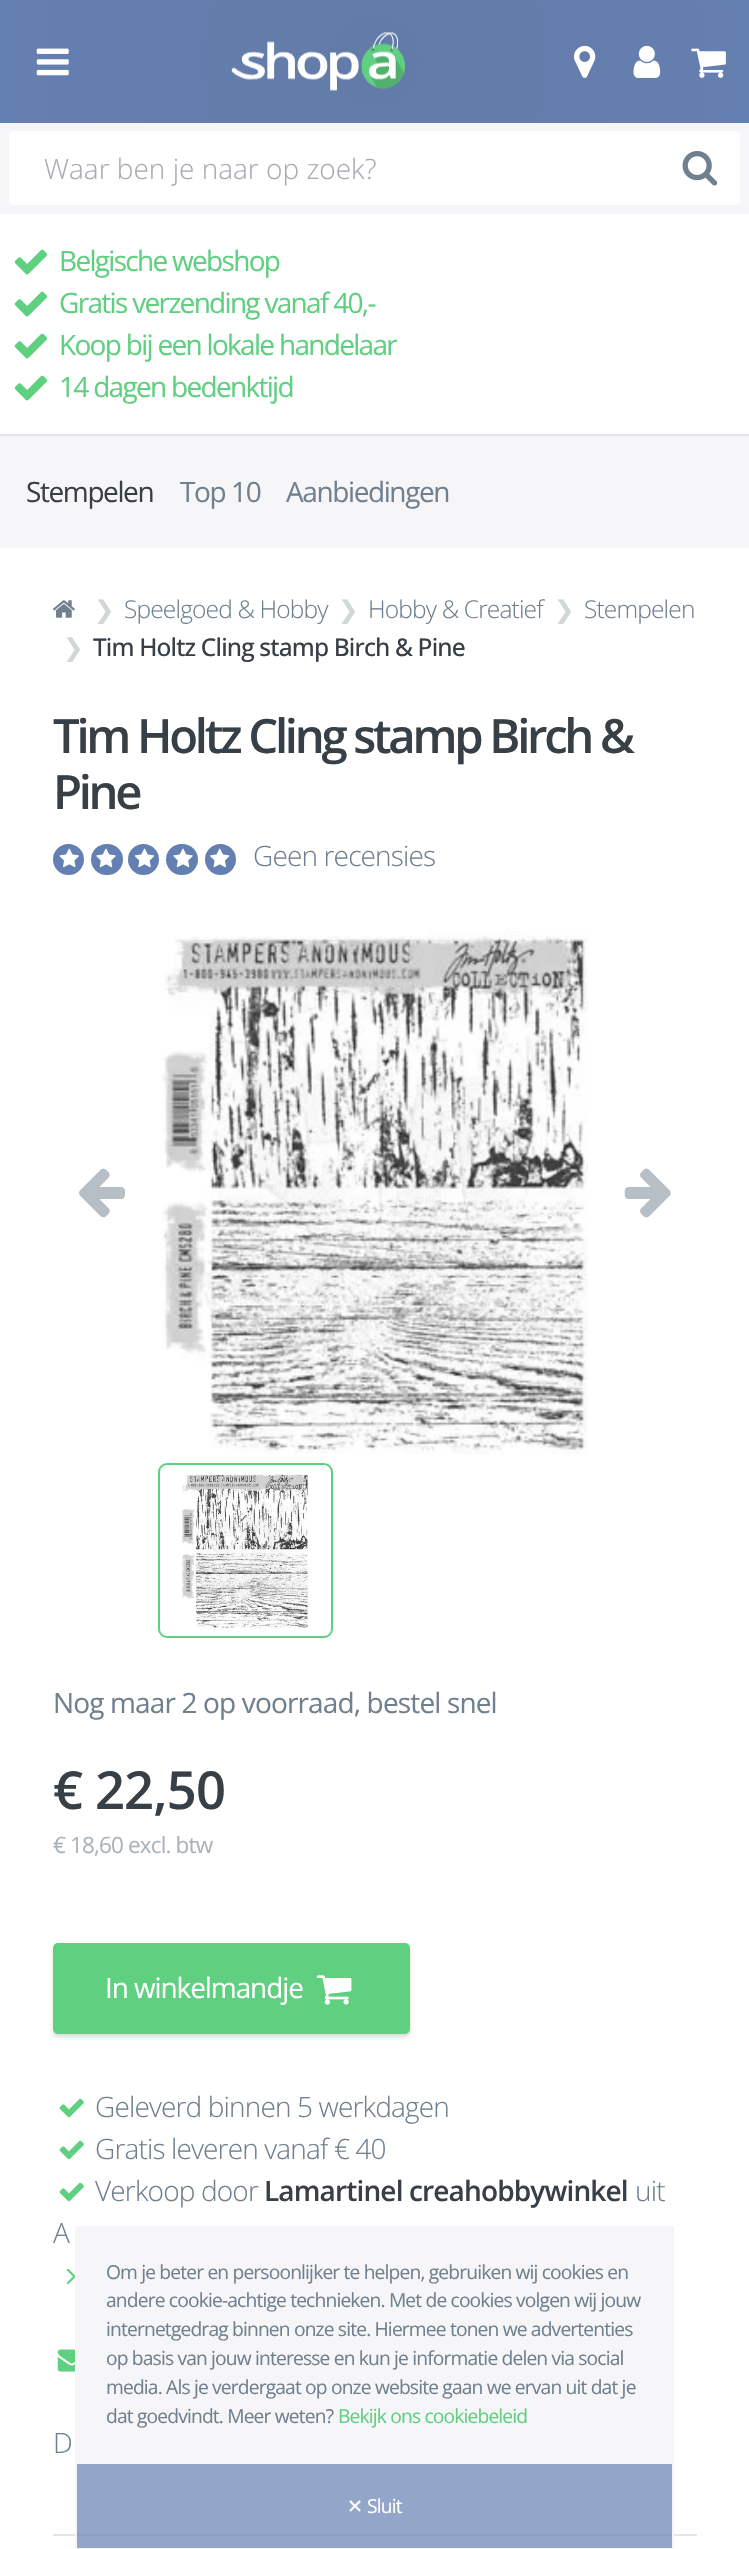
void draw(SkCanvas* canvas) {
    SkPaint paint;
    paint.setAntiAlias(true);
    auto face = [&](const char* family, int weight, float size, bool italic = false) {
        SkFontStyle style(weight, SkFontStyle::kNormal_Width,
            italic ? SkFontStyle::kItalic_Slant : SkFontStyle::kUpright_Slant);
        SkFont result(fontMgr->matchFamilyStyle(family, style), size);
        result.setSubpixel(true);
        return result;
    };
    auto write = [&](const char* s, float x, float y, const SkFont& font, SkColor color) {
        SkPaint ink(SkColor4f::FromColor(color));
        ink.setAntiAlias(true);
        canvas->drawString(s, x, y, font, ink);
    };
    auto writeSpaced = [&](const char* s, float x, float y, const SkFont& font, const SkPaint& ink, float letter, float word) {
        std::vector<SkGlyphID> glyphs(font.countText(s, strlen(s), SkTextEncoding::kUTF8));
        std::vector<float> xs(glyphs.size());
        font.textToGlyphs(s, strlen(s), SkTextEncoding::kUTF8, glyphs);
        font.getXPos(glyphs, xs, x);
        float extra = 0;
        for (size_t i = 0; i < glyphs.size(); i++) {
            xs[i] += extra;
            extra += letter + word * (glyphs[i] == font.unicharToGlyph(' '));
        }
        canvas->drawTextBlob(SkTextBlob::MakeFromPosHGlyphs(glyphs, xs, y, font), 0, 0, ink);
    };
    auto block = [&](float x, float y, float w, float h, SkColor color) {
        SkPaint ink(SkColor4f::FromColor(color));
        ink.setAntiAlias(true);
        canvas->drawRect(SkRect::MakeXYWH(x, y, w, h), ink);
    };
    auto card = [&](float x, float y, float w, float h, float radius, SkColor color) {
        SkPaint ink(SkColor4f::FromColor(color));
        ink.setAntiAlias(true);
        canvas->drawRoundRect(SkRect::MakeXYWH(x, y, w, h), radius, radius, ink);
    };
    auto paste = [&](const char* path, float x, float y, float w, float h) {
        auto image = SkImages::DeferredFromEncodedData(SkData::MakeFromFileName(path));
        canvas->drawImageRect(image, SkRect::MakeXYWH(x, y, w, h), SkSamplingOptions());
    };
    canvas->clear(SK_ColorWHITE);
    block(77, 2464, 595, 84, SkColorSetRGB(147, 165, 200));
    {
        const SkColor colors[] = {SkColorSetRGB(99, 123, 167), SkColorSetRGB(100, 127, 177)};
        const float stops[] = {0, 1};
        paint.setShader(SkGradientShader::MakeRadial({375, 61}, 379, colors, stops, 2, SkTileMode::kClamp));
        paint.setAlpha(255);
    }
    canvas->drawRect(SkRect::MakeXYWH(0, 0, 749, 123), paint);
    paste("pic1.png", 36, 48, 33, 28);
    paste("pic2.png", 231, 31, 174, 60);
    paste("pic3.png", 574, 45, 22, 33);
    paste("pic4.png", 633, 45, 28, 33);
    paste("pic5.png", 691, 48, 35, 30);
    block(0, 123, 749, 91, SkColorSetRGB(246, 246, 249));
    card(9, 131, 731, 74, 4, SK_ColorWHITE);
    auto kFont1 = face("Open Sans", 300, 28);
    write("Waar ben je naar op zoek?", 44, 179, kFont1, SkColorSetRGB(167, 172, 177));
    paste("pic6.png", 682, 150, 36, 36);
    paste("pic7.png", 14, 249, 33, 26);
    auto kFont2 = face("Open Sans", 400, 28);
    paint.setShader(nullptr);
    paint.setColor(SkColorSetRGB(95, 207, 128));
    writeSpaced("Belgische webshop", 59, 271, kFont2, paint, -1.7f, 0);
    paste("pic7.png", 14, 291, 33, 26);
    writeSpaced("Gratis verzending vanaf 40,-", 59, 313, kFont2, paint, -1.7f, 0);
    paste("pic7.png", 14, 333, 33, 26);
    writeSpaced("Koop bij een lokale handelaar", 59, 355, kFont2, paint, -1.7f, 0);
    paste("pic7.png", 14, 375, 33, 26);
    writeSpaced("14 dagen bedenktijd", 59, 397, kFont2, paint, -1.7f, 0);
    block(0, 436, 749, 112, SkColorSetRGB(246, 246, 249));
    block(0, 434, 749, 2, SkColorSetRGB(229, 230, 231));
    paint.setColor(SkColorSetRGB(56, 64, 71));
    writeSpaced("Stempelen", 26, 502, kFont2, paint, -1.4f, 0);
    paint.setColor(SkColorSetRGB(112, 128, 142));
    writeSpaced("Top 10", 180, 502, kFont2, paint, -1.4f, 0);
    writeSpaced("Aanbiedingen", 286, 502, kFont2, paint, -1.4f, 0);
    paste("pic8.png", 52, 600, 23, 18);
    auto kFont3 = face("DejaVu Sans", 400, 24.5f);
    paint.setColor(SkColorSetRGB(209, 214, 216));
    writeSpaced("❯", 94, 618, kFont3, paint, -0.85f, 0);
    auto kFont4 = face("Open Sans", 300, 24.5f);
    paint.setColor(SkColorSetRGB(112, 128, 142));
    writeSpaced("Speelgoed & Hobby", 124, 618, kFont4, paint, -0.85f, 0);
    paint.setColor(SkColorSetRGB(209, 214, 216));
    writeSpaced("❯", 338, 618, kFont3, paint, -0.85f, 0);
    paint.setColor(SkColorSetRGB(112, 128, 142));
    writeSpaced("Hobby & Creatief", 368, 618, kFont4, paint, -0.85f, 0);
    paint.setColor(SkColorSetRGB(209, 214, 216));
    writeSpaced("❯", 554, 618, kFont3, paint, -0.85f, 0);
    paint.setColor(SkColorSetRGB(112, 128, 142));
    writeSpaced("Stempelen", 584, 618, kFont4, paint, -0.85f, 0);
    paint.setColor(SkColorSetRGB(209, 214, 216));
    writeSpaced("❯", 63, 656, kFont3, paint, -0.85f, 0);
    auto kFont5 = face("Open Sans", 500, 24.5f);
    paint.setColor(SkColorSetRGB(56, 64, 71));
    writeSpaced("Tim Holtz Cling stamp Birch & Pine", 93, 656, kFont5, paint, -0.85f, 0);
    auto kFont6 = face("Open Sans", 600, 47.25f);
    writeSpaced("Tim Holtz Cling stamp Birch &", 53, 753, kFont6, paint, -3.3f, 0);
    writeSpaced("Pine", 53, 809, kFont6, paint, -3.3f, 0);
    paint.setColor(SkColorSetRGB(100, 127, 177));
    canvas->drawCircle(68.5f, 859.5f, 15.5f, paint);
    paste("pic9.png", 59, 848, 20, 20);
    card(91, 844, 32, 31, 15.5f, SkColorSetRGB(100, 127, 177));
    paste("pic10.png", 96, 848, 20, 20);
    canvas->drawCircle(143.5f, 859.5f, 15.5f, paint);
    paste("pic11.png", 134, 848, 21, 20);
    card(166, 844, 32, 31, 15.5f, SkColorSetRGB(100, 127, 177));
    paste("pic12.png", 173, 848, 20, 20);
    canvas->drawCircle(220.5f, 859.5f, 15.5f, paint);
    paste("pic13.png", 210, 848, 20, 20);
    paint.setColor(SkColorSetRGB(112, 128, 142));
    writeSpaced("Geen recensies", 253, 866, kFont1, paint, -0.85f, 0);
    paste("pic14.png", 79, 1168, 46, 50);
    paste("pic15.png", 161, 929, 427, 525);
    paste("pic16.png", 624, 1168, 47, 50);
    paint.setStyle(SkPaint::kStroke_Style);
    paint.setStrokeWidth(2);
    paint.setColor(SkColorSetRGB(95, 207, 128));
    canvas->drawRoundRect(SkRect::MakeXYWH(159, 1464, 173, 173), 8, 8, paint);
    paste("pic17.png", 181, 1472, 128, 157);
    paint.setStyle(SkPaint::kFill_Style);
    paint.setColor(SkColorSetRGB(112, 128, 142));
    writeSpaced("Nog maar 2 op voorraad, bestel snel", 53, 1713, kFont2, paint, -0.85f, 0);
    auto kFont7 = face("Open Sans", 600, 52.5f);
    paint.setColor(SkColorSetRGB(56, 64, 71));
    writeSpaced("€ 22,50", 53, 1809, kFont7, paint, -0.85f, 0);
    auto kFont8 = face("Open Sans", 400, 22.5f);
    paint.setColor(SkColorSetRGB(169, 179, 187));
    writeSpaced("€ 18,60 excl. btw", 53, 1853, kFont8, paint, -0.85f, 0);
    paint.setColor(SkColorSetARGB(51, 56, 64, 71));
    paint.setMaskFilter(SkMaskFilter::MakeBlur(kNormal_SkBlurStyle, 2));
    canvas->drawRoundRect(SkRect::MakeXYWH(53, 1946, 357, 91), 5, 5, paint);
    paint.setMaskFilter(nullptr);
    card(53, 1943, 357, 91, 5, SkColorSetRGB(95, 207, 128));
    paint.setColor(SK_ColorWHITE);
    writeSpaced("In winkelmandje", 105, 1998, kFont2, paint, -1.1f, 0);
    paste("pic18.png", 316, 1975, 36, 30);
    paste("pic19.png", 59, 2098, 25, 20);
    paint.setColor(SkColorSetRGB(112, 128, 142));
    writeSpaced("Geleverd binnen 5 werkdagen", 95, 2117, kFont1, paint, -0.85f, 0);
    paste("pic19.png", 59, 2140, 25, 20);
    writeSpaced("Gratis leveren vanaf € 40", 95, 2159, kFont1, paint, -0.85f, 0);
    paste("pic19.png", 59, 2182, 25, 20);
    writeSpaced("Verkoop door", 95, 2201, kFont1, paint, -0.85f, 0);
    auto kFont9 = face("Open Sans", 600, 28);
    paint.setColor(SkColorSetRGB(56, 64, 71));
    writeSpaced("Lamartinel creahobbywinkel", 264, 2201, kFont9, paint, -0.85f, 0);
    paint.setColor(SkColorSetRGB(112, 128, 142));
    writeSpaced("uit", 635, 2201, kFont1, paint, -0.85f, 0);
    writeSpaced("A", 53, 2243, kFont1, paint, -0.85f, 0);
    paste("pic20.png", 66, 2268, 9, 17);
    paste("pic21.png", 57, 2349, 18, 23);
    writeSpaced("D", 53, 2453, kFont1, paint, -0.85f, 0);
    block(53, 2534, 644, 2, SkColorSetRGB(230, 230, 230));
    block(75, 2534, 599, 2, SkColorSetRGB(139, 158, 193));
    block(75, 2226, 599, 236, SkColorSetRGB(246, 246, 249));
    auto kFont10 = face("Open Sans", 400, 19.25f);
    writeSpaced("Om je beter en persoonlijker te helpen, gebruiken wij cookies en", 106, 2279, kFont10, paint, -0.85f, 0);
    writeSpaced("andere cookie-achtige technieken. Met de cookies volgen wij jouw", 106, 2307, kFont10, paint, -0.85f, 0);
    writeSpaced("internetgedrag binnen onze site. Hiermee tonen we advertenties", 106, 2336, kFont10, paint, -0.85f, 0);
    writeSpaced("op basis van jouw interesse en kun je informatie delen via social", 106, 2365, kFont10, paint, -0.85f, 0);
    writeSpaced("media. Als je verdergaat op onze website gaan we ervan uit dat je", 106, 2394, kFont10, paint, -0.85f, 0);
    writeSpaced("dat goedvindt. Meer weten?", 106, 2423, kFont10, paint, -0.85f, 0);
    paint.setColor(SkColorSetRGB(95, 207, 128));
    writeSpaced("Bekijk ons cookiebeleid", 338, 2423, kFont10, paint, -0.85f, 0);
    paint.setStyle(SkPaint::kStroke_Style);
    paint.setColor(SkColorSetRGB(246, 246, 249));
    canvas->drawRect(SkRect::MakeXYWH(76, 2463, 597, 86), paint);
    auto kFont11 = face("DejaVu Sans", 400, 19.25f);
    paint.setStyle(SkPaint::kFill_Style);
    paint.setColor(SK_ColorWHITE);
    writeSpaced("✕", 347, 2513, kFont11, paint, -0.85f, 0);
    writeSpaced("Sluit", 367, 2513, kFont10, paint, -0.85f, 0);
}
